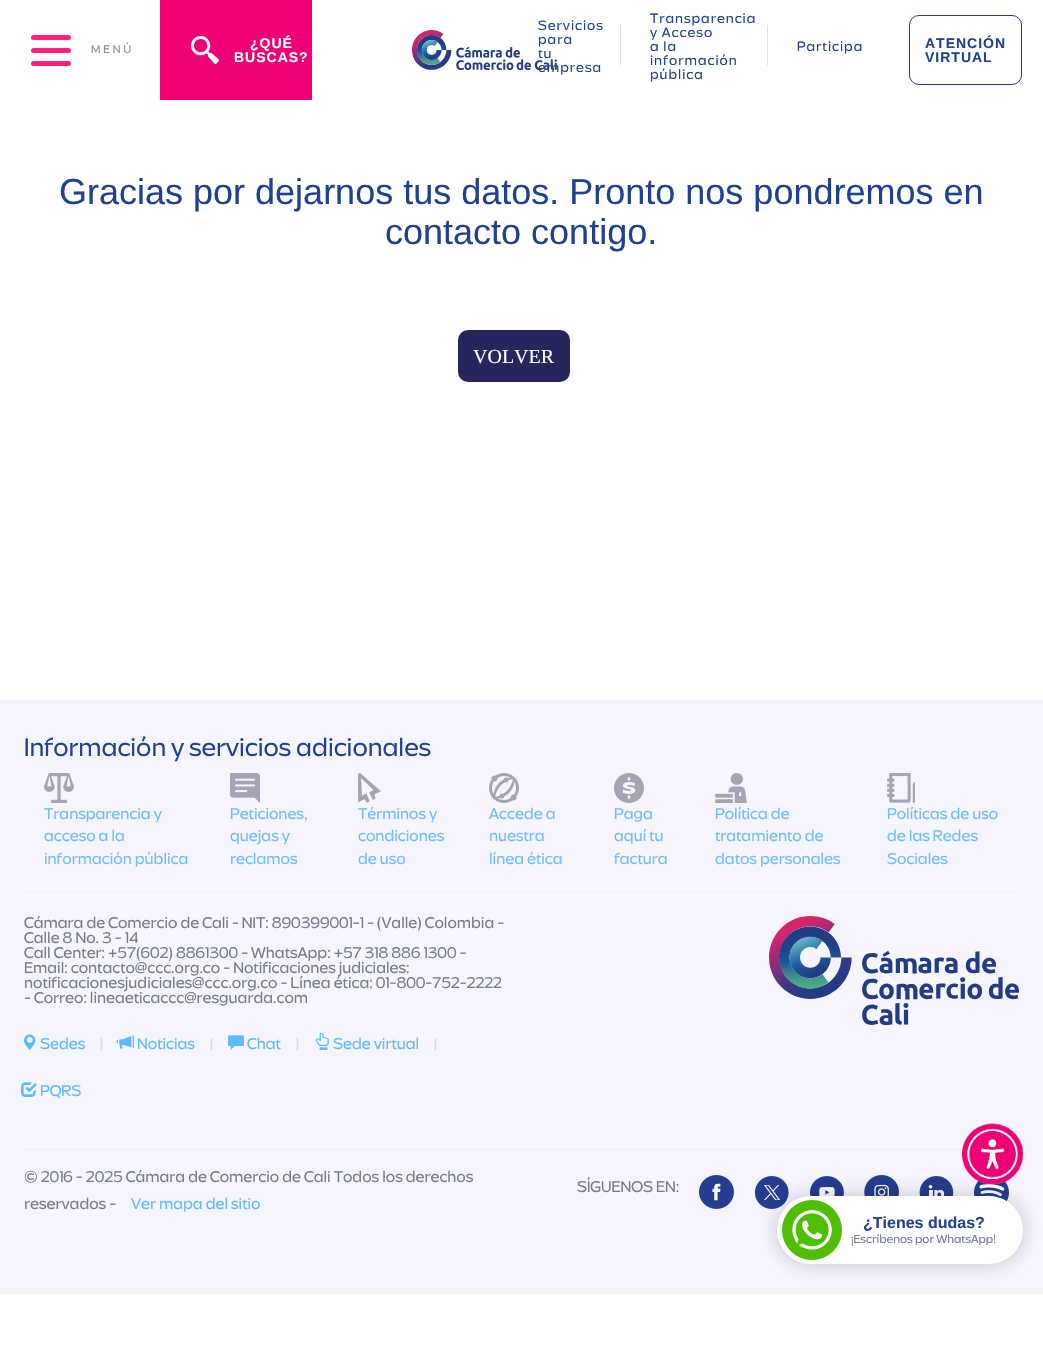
void draw(SkCanvas* canvas) {
    SkPaint paint;
    paint.setAntiAlias(true);
    auto face = [&](const char* family, int weight, float size, bool italic = false) {
        SkFontStyle style(weight, SkFontStyle::kNormal_Width,
            italic ? SkFontStyle::kItalic_Slant : SkFontStyle::kUpright_Slant);
        SkFont result(fontMgr->matchFamilyStyle(family, style), size);
        result.setSubpixel(true);
        return result;
    };
    auto write = [&](const char* s, float x, float y, const SkFont& font, SkColor color) {
        SkPaint ink(SkColor4f::FromColor(color));
        ink.setAntiAlias(true);
        canvas->drawString(s, x, y, font, ink);
    };
    auto writeSpaced = [&](const char* s, float x, float y, const SkFont& font, const SkPaint& ink, float letter, float word) {
        std::vector<SkGlyphID> glyphs(font.countText(s, strlen(s), SkTextEncoding::kUTF8));
        std::vector<float> xs(glyphs.size());
        font.textToGlyphs(s, strlen(s), SkTextEncoding::kUTF8, glyphs);
        font.getXPos(glyphs, xs, x);
        float extra = 0;
        for (size_t i = 0; i < glyphs.size(); i++) {
            xs[i] += extra;
            extra += letter + word * (glyphs[i] == font.unicharToGlyph(' '));
        }
        canvas->drawTextBlob(SkTextBlob::MakeFromPosHGlyphs(glyphs, xs, y, font), 0, 0, ink);
    };
    auto block = [&](float x, float y, float w, float h, SkColor color) {
        SkPaint ink(SkColor4f::FromColor(color));
        ink.setAntiAlias(true);
        canvas->drawRect(SkRect::MakeXYWH(x, y, w, h), ink);
    };
    auto card = [&](float x, float y, float w, float h, float radius, SkColor color) {
        SkPaint ink(SkColor4f::FromColor(color));
        ink.setAntiAlias(true);
        canvas->drawRoundRect(SkRect::MakeXYWH(x, y, w, h), radius, radius, ink);
    };
    auto paste = [&](const char* path, float x, float y, float w, float h) {
        auto image = SkImages::DeferredFromEncodedData(SkData::MakeFromFileName(path));
        canvas->drawImageRect(image, SkRect::MakeXYWH(x, y, w, h), SkSamplingOptions());
    };
    canvas->clear(SK_ColorWHITE);
    card(31, 35, 40, 5, 2.5f, SkColorSetRGB(255, 33, 122));
    card(31, 48, 40, 5, 2.5f, SkColorSetRGB(255, 33, 122));
    card(31, 61, 40, 5, 2.5f, SkColorSetRGB(255, 33, 122));
    auto kFont1 = face("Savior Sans", 300, 11.5f);
    paint.setColor(SkColorSetRGB(127, 139, 151));
    writeSpaced("MENÚ", 91, 53, kFont1, paint, 3, 0);
    block(160, 0, 152, 100, SkColorSetRGB(239, 0, 116));
    paste("pic1.png", 191, 36, 28, 28);
    auto kFont2 = face("Liberation Sans", 700, 14);
    paint.setColor(SK_ColorWHITE);
    writeSpaced("¿QUÉ", 250, 48, kFont2, paint, 1, 0);
    writeSpaced("BUSCAS?", 234, 62, kFont2, paint, 1, 0);
    paste("pic2.png", 412, 30, 145, 40);
    auto kFont3 = face("Savior Sans", 300, 14);
    paint.setColor(SkColorSetRGB(33, 64, 146));
    writeSpaced("Servicios", 538, 30, kFont3, paint, 1, 0);
    writeSpaced("para", 538, 44, kFont3, paint, 1, 0);
    writeSpaced("tu", 538, 58, kFont3, paint, 1, 0);
    writeSpaced("empresa", 538, 72, kFont3, paint, 1, 0);
    block(620, 25, 1, 40, SkColorSetRGB(222, 222, 232));
    writeSpaced("Transparencia", 650, 23, kFont3, paint, 1, 0);
    writeSpaced("y Acceso", 650, 37, kFont3, paint, 1, 0);
    writeSpaced("a la", 650, 51, kFont3, paint, 1, 0);
    writeSpaced("información", 650, 65, kFont3, paint, 1, 0);
    writeSpaced("pública", 650, 79, kFont3, paint, 1, 0);
    block(767, 25, 1, 40, SkColorSetRGB(222, 222, 232));
    writeSpaced("Participa", 797, 51, kFont3, paint, 1, 0);
    paint.setStyle(SkPaint::kStroke_Style);
    paint.setStrokeWidth(1);
    paint.setColor(SkColorSetRGB(37, 61, 144));
    canvas->drawRoundRect(SkRect::MakeXYWH(909.5f, 15.5f, 112, 69), 9.5f, 9.5f, paint);
    paint.setStyle(SkPaint::kFill_Style);
    paint.setColor(SkColorSetRGB(33, 64, 146));
    writeSpaced("ATENCIÓN", 925, 48, kFont2, paint, 1, 0);
    writeSpaced("VIRTUAL", 925, 62, kFont2, paint, 1, 0);
    auto kFont4 = face("Liberation Sans", 400, 36);
    write("Gracias por dejarnos tus datos. Pronto nos pondremos en", 59, 204, kFont4, SkColorSetRGB(33, 64, 146));
    write("contacto contigo.", 385, 244, kFont4, SkColorSetRGB(33, 64, 146));
    card(458, 330, 112, 52, 10, SkColorSetRGB(38, 38, 93));
    auto kFont5 = face("Liberation Serif", 400, 20);
    write("VOLVER", 473, 363, kFont5, SK_ColorWHITE);
    block(0, 700, 1043, 594, SkColorSetRGB(246, 244, 253));
    auto kFont6 = face("Savior Sans", 300, 26);
    write("Información y servicios adicionales", 24, 756, kFont6, SkColorSetRGB(33, 64, 146));
    paste("pic3.png", 44, 773, 30, 30);
    auto kFont7 = face("Savior Sans", 300, 16);
    write("Transparencia y", 44, 819, kFont7, SkColorSetRGB(111, 188, 255));
    write("acceso a la", 44, 841, kFont7, SkColorSetRGB(111, 188, 255));
    write("información pública", 44, 864, kFont7, SkColorSetRGB(111, 188, 255));
    paste("pic4.png", 230, 773, 30, 30);
    write("Peticiones,", 230, 819, kFont7, SkColorSetRGB(111, 188, 255));
    write("quejas y", 230, 841, kFont7, SkColorSetRGB(111, 188, 255));
    write("reclamos", 230, 864, kFont7, SkColorSetRGB(111, 188, 255));
    paste("pic5.png", 358, 773, 23, 30);
    write("Términos y", 358, 819, kFont7, SkColorSetRGB(111, 188, 255));
    write("condiciones", 358, 841, kFont7, SkColorSetRGB(111, 188, 255));
    write("de uso", 358, 864, kFont7, SkColorSetRGB(111, 188, 255));
    paste("pic6.png", 489, 773, 30, 30);
    write("Accede a", 489, 819, kFont7, SkColorSetRGB(111, 188, 255));
    write("nuestra", 489, 841, kFont7, SkColorSetRGB(111, 188, 255));
    write("línea ética", 489, 864, kFont7, SkColorSetRGB(111, 188, 255));
    paste("pic7.png", 614, 773, 30, 30);
    write("Paga", 614, 819, kFont7, SkColorSetRGB(111, 188, 255));
    write("aquí tu", 614, 841, kFont7, SkColorSetRGB(111, 188, 255));
    write("factura", 614, 864, kFont7, SkColorSetRGB(111, 188, 255));
    paste("pic8.png", 715, 773, 32, 30);
    write("Política de", 715, 819, kFont7, SkColorSetRGB(111, 188, 255));
    write("tratamiento de", 715, 841, kFont7, SkColorSetRGB(111, 188, 255));
    write("datos personales", 715, 864, kFont7, SkColorSetRGB(111, 188, 255));
    paste("pic9.png", 887, 773, 28, 30);
    write("Políticas de uso", 887, 819, kFont7, SkColorSetRGB(111, 188, 255));
    write("de las Redes", 887, 841, kFont7, SkColorSetRGB(111, 188, 255));
    write("Sociales", 887, 864, kFont7, SkColorSetRGB(111, 188, 255));
    block(24, 891, 995, 1, SkColorSetRGB(238, 238, 238));
    write("Cámara de Comercio de Cali - NIT: 890399001-1 - (Valle) Colombia -", 24, 928, kFont7, SkColorSetRGB(115, 124, 141));
    write("Calle 8 No. 3 - 14", 24, 943, kFont7, SkColorSetRGB(115, 124, 141));
    write("Call Center: +57(602) 8861300 - WhatsApp: +57 318 886 1300 -", 24, 958, kFont7, SkColorSetRGB(115, 124, 141));
    write("Email: contacto@ccc.org.co - Notificaciones judiciales:", 24, 973, kFont7, SkColorSetRGB(115, 124, 141));
    write("notificacionesjudiciales@ccc.org.co - Línea ética: 01-800-752-2222", 24, 988, kFont7, SkColorSetRGB(115, 124, 141));
    write("- Correo: lineaeticaccc@resguarda.com", 24, 1003, kFont7, SkColorSetRGB(115, 124, 141));
    paste("pic10.png", 23, 1034, 13, 16);
    write("Sedes", 40, 1049, kFont7, SkColorSetRGB(92, 186, 255));
    write("|", 100, 1049, kFont7, SkColorSetRGB(221, 221, 221));
    paste("pic11.png", 116, 1035, 18, 14);
    write("Noticias", 137, 1049, kFont7, SkColorSetRGB(92, 186, 255));
    write("|", 210, 1049, kFont7, SkColorSetRGB(221, 221, 221));
    paste("pic12.png", 228, 1035, 16, 15);
    write("Chat", 247, 1049, kFont7, SkColorSetRGB(92, 186, 255));
    write("|", 296, 1049, kFont7, SkColorSetRGB(221, 221, 221));
    paste("pic13.png", 315, 1032, 14, 18);
    write("Sede virtual", 333, 1049, kFont7, SkColorSetRGB(92, 186, 255));
    write("|", 434, 1049, kFont7, SkColorSetRGB(221, 221, 221));
    paste("pic14.png", 21, 1082, 16, 15);
    write("PQRS", 40, 1096, kFont7, SkColorSetRGB(92, 186, 255));
    paste("pic15.png", 769, 916, 250, 109);
    block(24, 1149, 939, 1, SkColorSetRGB(238, 238, 238));
    paste("pic22.png", 974, 1180, 35, 22);
    paste("pic18.png", 754, 1176, 35, 33);
    paste("pic19.png", 810, 1176, 34, 21);
    paste("pic20.png", 864, 1175, 35, 21);
    paste("pic21.png", 919, 1176, 35, 20);
    paint.setColor(SkColorSetARGB(51, 0, 0, 0));
    paint.setMaskFilter(SkMaskFilter::MakeBlur(kNormal_SkBlurStyle, 10));
    canvas->drawRoundRect(SkRect::MakeXYWH(777, 1196, 246, 68), 34, 34, paint);
    paint.setMaskFilter(nullptr);
    paint.setColor(SkColorSetRGB(239, 239, 239));
    canvas->drawCircle(992.5f, 1153.5f, 30.5f, paint);
    paste("pic16.png", 962, 1123, 61, 61);
    write("© 2016 - 2025 Cámara de Comercio de Cali Todos los derechos", 24, 1182, kFont7, SkColorSetRGB(115, 124, 141));
    write("reservados -", 24, 1209, kFont7, SkColorSetRGB(115, 124, 141));
    write("Ver mapa del sitio", 131, 1209, kFont7, SkColorSetRGB(92, 186, 255));
    write("SÍGUENOS EN:", 577, 1192, kFont7, SkColorSetRGB(115, 124, 141));
    paste("pic17.png", 699, 1175, 35, 34);
    card(777, 1196, 246, 68, 34, SK_ColorWHITE);
    paint.setColor(SkColorSetRGB(80, 190, 0));
    canvas->drawCircle(812, 1230, 30, paint);
    paste("pic23.png", 792, 1210, 40, 40);
    auto kFont8 = face("Liberation Sans", 700, 16);
    write("¿Tienes dudas?", 863, 1228, kFont8, SkColorSetRGB(33, 64, 146));
    auto kFont9 = face("Savior Sans", 300, 12);
    write("¡Escríbenos por WhatsApp!", 851, 1243, kFont9, SkColorSetRGB(115, 124, 141));
}
